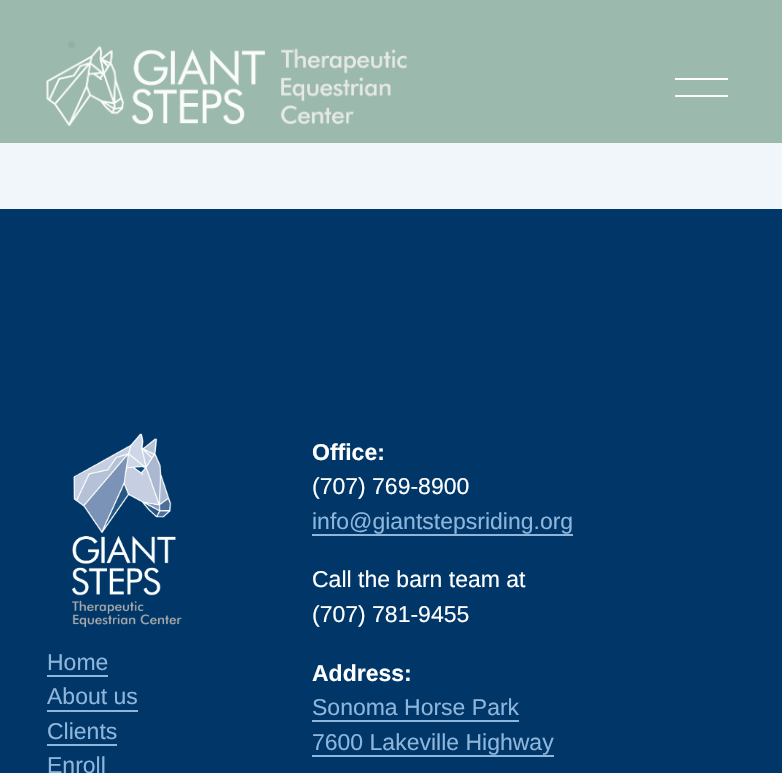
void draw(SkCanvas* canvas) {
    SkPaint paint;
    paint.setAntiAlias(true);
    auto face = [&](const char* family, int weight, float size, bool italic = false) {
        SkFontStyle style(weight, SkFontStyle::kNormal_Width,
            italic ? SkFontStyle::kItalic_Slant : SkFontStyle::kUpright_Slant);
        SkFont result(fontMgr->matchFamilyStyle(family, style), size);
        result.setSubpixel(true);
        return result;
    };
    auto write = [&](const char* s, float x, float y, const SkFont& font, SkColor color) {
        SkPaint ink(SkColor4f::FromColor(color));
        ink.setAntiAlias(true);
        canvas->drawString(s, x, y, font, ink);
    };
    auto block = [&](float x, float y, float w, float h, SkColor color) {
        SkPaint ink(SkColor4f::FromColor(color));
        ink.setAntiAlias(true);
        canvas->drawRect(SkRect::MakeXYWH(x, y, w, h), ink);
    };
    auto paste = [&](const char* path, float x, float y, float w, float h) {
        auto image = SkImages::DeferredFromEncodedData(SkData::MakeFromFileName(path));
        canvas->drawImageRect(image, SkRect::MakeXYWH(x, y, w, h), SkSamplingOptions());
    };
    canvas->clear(SkColorSetRGB(241, 246, 251));
    paint.setColor(SkColorSetRGB(70, 73, 75));
    canvas->drawCircle(71.5f, 44.5f, 3.5f, paint);
    block(0, 0, 782, 143, SkColorSetARGB(242, 151, 181, 169));
    paste("pic1.png", 46, 46, 361, 80);
    block(675, 78, 53, 2, SkColorSetRGB(254, 255, 255));
    block(675, 95, 53, 2, SkColorSetRGB(250, 251, 251));
    block(0, 209, 782, 564, SkColorSetRGB(0, 55, 104));
    paste("pic2.png", 72, 433, 110, 194);
    auto kFont1 = face("Liberation Sans", 700, 23);
    write("Office:", 312, 460, kFont1, SK_ColorWHITE);
    auto kFont2 = face("Liberation Sans", 400, 23);
    write("(707) 769-8900", 312, 494, kFont2, SK_ColorWHITE);
    write("info@giantstepsriding.org", 312, 529, kFont2, SkColorSetRGB(142, 182, 220));
    block(312, 534, 261, 2, SkColorSetRGB(142, 182, 220));
    write("Call the barn team at", 312, 587, kFont2, SK_ColorWHITE);
    write("(707) 781-9455", 312, 622, kFont2, SK_ColorWHITE);
    write("Address:", 312, 681, kFont1, SK_ColorWHITE);
    write("Sonoma Horse Park", 312, 715, kFont2, SkColorSetRGB(142, 182, 220));
    block(312, 720, 207, 2, SkColorSetRGB(142, 182, 220));
    write("7600 Lakeville Highway", 312, 750, kFont2, SkColorSetRGB(142, 182, 220));
    block(312, 755, 242, 2, SkColorSetRGB(142, 182, 220));
    write("Home", 47, 670, kFont2, SkColorSetRGB(142, 182, 220));
    block(47, 675, 61, 2, SkColorSetRGB(142, 182, 220));
    write("About us", 47, 704, kFont2, SkColorSetRGB(142, 182, 220));
    block(47, 710, 91, 2, SkColorSetRGB(142, 182, 220));
    write("Clients", 47, 739, kFont2, SkColorSetRGB(142, 182, 220));
    block(47, 744, 70, 2, SkColorSetRGB(142, 182, 220));
    write("Enroll", 47, 773, kFont2, SkColorSetRGB(142, 182, 220));
}
